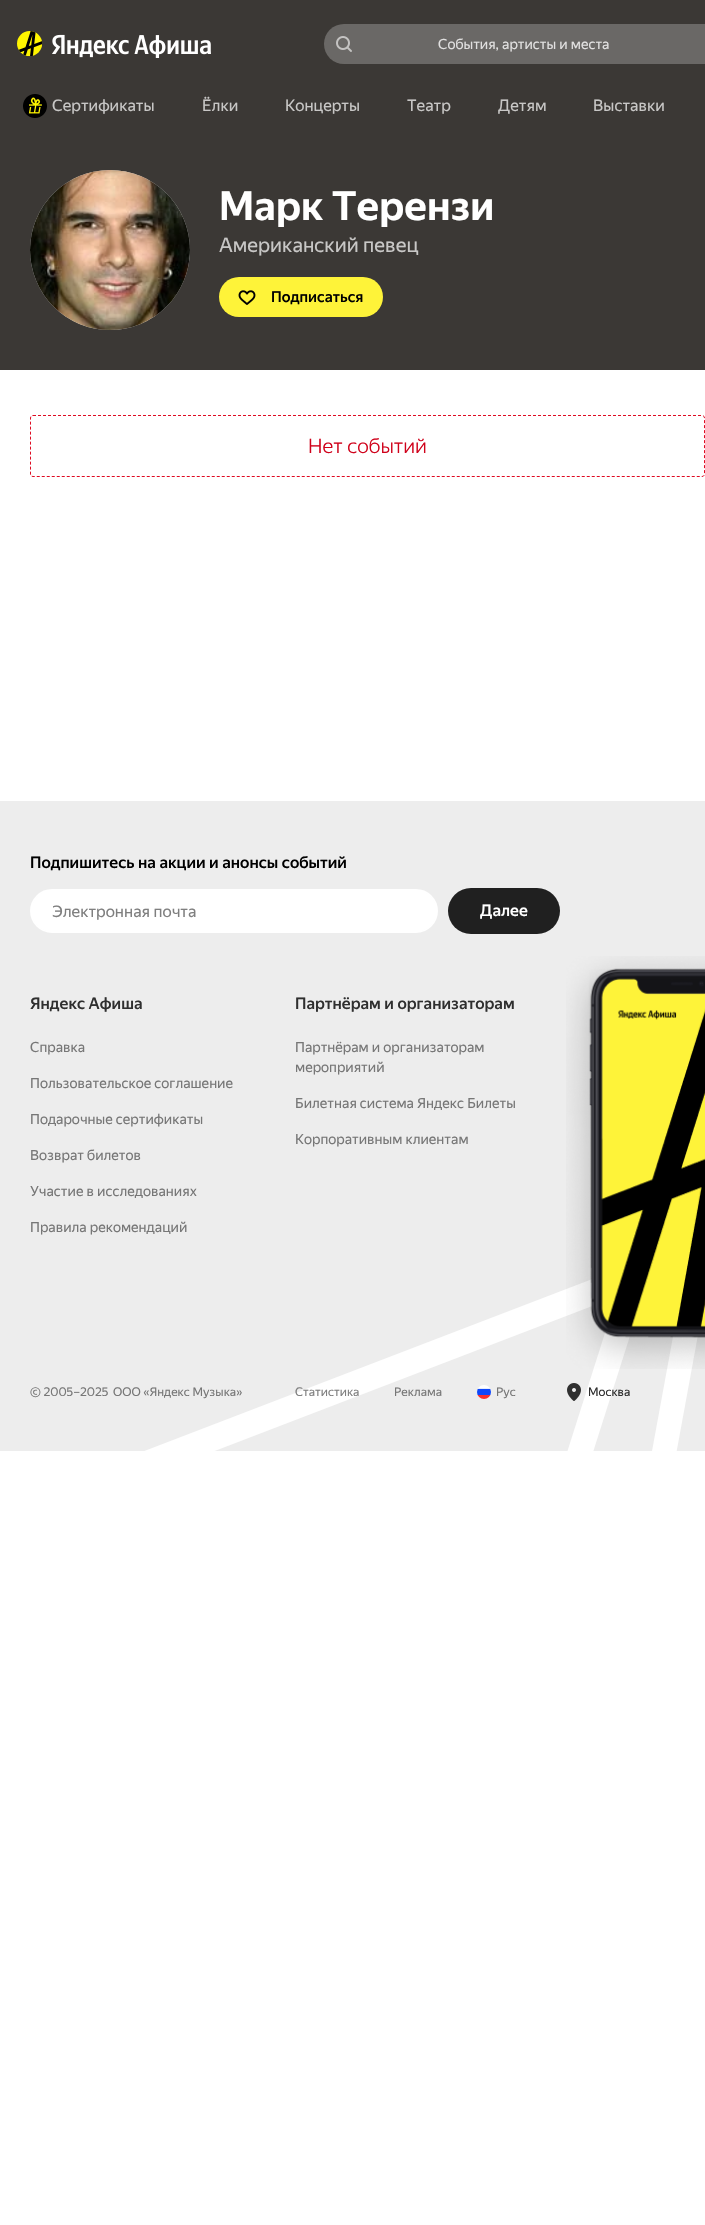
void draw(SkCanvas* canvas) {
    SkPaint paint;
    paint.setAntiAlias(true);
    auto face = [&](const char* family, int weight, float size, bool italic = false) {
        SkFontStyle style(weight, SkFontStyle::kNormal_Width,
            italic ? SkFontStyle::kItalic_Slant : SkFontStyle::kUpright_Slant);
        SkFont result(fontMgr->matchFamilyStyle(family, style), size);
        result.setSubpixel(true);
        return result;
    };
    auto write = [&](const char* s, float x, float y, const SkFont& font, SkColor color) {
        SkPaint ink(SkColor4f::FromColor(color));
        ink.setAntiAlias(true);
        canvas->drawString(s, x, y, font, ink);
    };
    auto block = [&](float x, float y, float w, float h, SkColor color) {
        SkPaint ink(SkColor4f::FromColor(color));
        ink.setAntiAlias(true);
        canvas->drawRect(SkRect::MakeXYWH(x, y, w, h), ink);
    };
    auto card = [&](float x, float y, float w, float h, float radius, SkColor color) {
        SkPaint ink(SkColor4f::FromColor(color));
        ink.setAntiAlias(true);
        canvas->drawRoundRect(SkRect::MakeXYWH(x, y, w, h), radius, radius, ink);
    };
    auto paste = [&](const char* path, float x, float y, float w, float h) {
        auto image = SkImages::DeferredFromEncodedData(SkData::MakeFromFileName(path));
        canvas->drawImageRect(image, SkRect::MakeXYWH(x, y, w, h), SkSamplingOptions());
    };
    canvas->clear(SK_ColorWHITE);
    block(0, 0, 705, 370, SkColorSetRGB(59, 56, 53));
    paste("pic1.png", 17, 31, 26, 26);
    paste("pic2.png", 52, 34, 159, 24);
    paste("pic3.png", 336, 36, 16, 16);
    auto kFont1 = face("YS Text", 400, 14);
    write("События, артисты и места", 438, 49, kFont1, SkColorSetRGB(216, 215, 215));
    card(324, 24, 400, 40, 20, SkColorSetARGB(61, 255, 255, 255));
    paste("pic4.png", 23, 94, 24, 24);
    auto kFont2 = face("YS Text", 400, 16);
    write("Сертификаты", 52, 111, kFont2, SkColorSetRGB(200, 199, 198));
    write("Ёлки", 202, 111, kFont2, SkColorSetRGB(200, 199, 198));
    write("Концерты", 285, 111, kFont2, SkColorSetRGB(200, 199, 198));
    write("Театр", 407, 111, kFont2, SkColorSetRGB(200, 199, 198));
    write("Детям", 498, 111, kFont2, SkColorSetRGB(200, 199, 198));
    write("Выставки", 593, 111, kFont2, SkColorSetRGB(200, 199, 198));
    paint.setColor(SkColorSetRGB(216, 216, 216));
    canvas->drawCircle(110, 250, 80, paint);
    paste("pic5.png", 30, 170, 160, 160);
    auto kFont3 = face("YS Text", 700, 40);
    write("Марк Терензи", 219, 220, kFont3, SK_ColorWHITE);
    auto kFont4 = face("YS Text", 400, 20);
    write("Американский певец", 219, 252, kFont4, SkColorSetRGB(200, 199, 198));
    card(219, 277, 164, 40, 20, SkColorSetRGB(254, 243, 57));
    paste("pic6.png", 238, 290, 18, 15);
    auto kFont5 = face("YS Text", 500, 15);
    write("Подписаться", 271, 302, kFont5, SK_ColorBLACK);
    paint.setStyle(SkPaint::kStroke_Style);
    paint.setStrokeWidth(1);
    paint.setColor(SkColorSetRGB(223, 11, 34));
    paint.setPathEffect(SkDashPathEffect::Make({{3, 2}}, 0));
    canvas->drawPath(SkPathBuilder().moveTo(33, 415.5f).lineTo(702, 415.5f).cubicTo(703.5f, 415.5f, 704.5f, 416.5f, 704.5f, 418).lineTo(704.5f, 474).cubicTo(704.5f, 475.5f, 703.5f, 476.5f, 702, 476.5f).lineTo(33, 476.5f).cubicTo(31.5f, 476.5f, 30.5f, 475.5f, 30.5f, 474).lineTo(30.5f, 418).cubicTo(30.5f, 416.5f, 31.5f, 415.5f, 33, 415.5f).close().detach(), paint);
    paint.setPathEffect(nullptr);
    auto kFont6 = face("YS Text", 300, 20);
    write("Нет событий", 308, 453, kFont6, SkColorSetRGB(208, 2, 27));
    block(0, 801, 705, 650, SkColorSetRGB(237, 237, 237));
    auto kFont7 = face("YS Text", 500, 16);
    write("Подпишитесь на акции и анонсы событий", 30, 868, kFont7, SK_ColorBLACK);
    paint.setStyle(SkPaint::kFill_Style);
    paint.setColor(SK_ColorWHITE);
    canvas->drawRoundRect(SkRect::MakeXYWH(31, 890, 406, 42), 21, 21, paint);
    paint.setStyle(SkPaint::kStroke_Style);
    paint.setStrokeWidth(2);
    canvas->drawRoundRect(SkRect::MakeXYWH(31, 890, 406, 42), 21, 21, paint);
    write("Электронная почта", 52, 917, kFont2, SkColorSetRGB(127, 127, 127));
    card(448, 888, 112, 46, 23, SkColorSetRGB(32, 32, 32));
    write("Далее", 480, 916, kFont7, SK_ColorWHITE);
    write("Яндекс Афиша", 30, 1009, kFont7, SkColorSetRGB(47, 47, 47));
    write("Справка", 30, 1052, kFont1, SkColorSetRGB(119, 119, 119));
    write("Пользовательское соглашение", 30, 1088, kFont1, SkColorSetRGB(119, 119, 119));
    write("Подарочные сертификаты", 30, 1124, kFont1, SkColorSetRGB(119, 119, 119));
    write("Возврат билетов", 30, 1160, kFont1, SkColorSetRGB(119, 119, 119));
    write("Участие в исследованиях", 30, 1196, kFont1, SkColorSetRGB(119, 119, 119));
    write("Правила рекомендаций", 30, 1232, kFont1, SkColorSetRGB(119, 119, 119));
    write("Партнёрам и организаторам", 295, 1009, kFont7, SkColorSetRGB(47, 47, 47));
    write("Партнёрам и организаторам", 295, 1052, kFont1, SkColorSetRGB(119, 119, 119));
    write("мероприятий", 295, 1072, kFont1, SkColorSetRGB(119, 119, 119));
    write("Билетная система Яндекс Билеты", 295, 1108, kFont1, SkColorSetRGB(119, 119, 119));
    write("Корпоративным клиентам", 295, 1144, kFont1, SkColorSetRGB(119, 119, 119));
    auto kFont8 = face("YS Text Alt", 400, 12);
    write("© 2005–2025", 30, 1396, kFont8, SkColorSetRGB(119, 119, 119));
    canvas->save();
    canvas->clipRect(SkRect::MakeXYWH(100, 801, 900, 650));
    paint.setStyle(SkPaint::kFill_Style);
    canvas->drawPath(SkPathBuilder(SkPathFillType::kEvenOdd).moveTo(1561, 934).lineTo(108, 1492).lineTo(100, 1468).lineTo(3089, 321).lineTo(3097, 345).close().detach(), paint);
    canvas->restore();
    auto kFont9 = face("YS Text", 400, 12);
    write("ООО «Яндекс Музыка»", 113, 1396, kFont9, SkColorSetRGB(119, 119, 119));
    write("Статистика", 295, 1396, kFont9, SkColorSetRGB(127, 127, 127));
    write("Реклама", 394, 1396, kFont9, SkColorSetRGB(119, 119, 119));
    paste("pic7.png", 477, 1385, 14, 14);
    write("Рус", 496, 1396, kFont9, SkColorSetRGB(119, 119, 119));
    canvas->save();
    canvas->clipRect(SkRect::MakeXYWH(549, 801, 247, 650));
    canvas->drawPath(SkPathBuilder(SkPathFillType::kEvenOdd).moveTo(630, 1571).lineTo(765, 835).lineTo(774, 800).lineTo(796, 800).lineTo(654, 1575).close().detach(), paint);
    canvas->drawPath(SkPathBuilder(SkPathFillType::kEvenOdd).moveTo(523, 1591).lineTo(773, 804).lineTo(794, 804).lineTo(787, 842).lineTo(547, 1597).close().detach(), paint);
    canvas->restore();
    paste("pic8.png", 567, 1383, 14, 18);
    write("Москва", 588, 1396, kFont9, SkColorSetRGB(47, 47, 47));
    paste("pic9.png", 566, 956, 139, 413);
}
